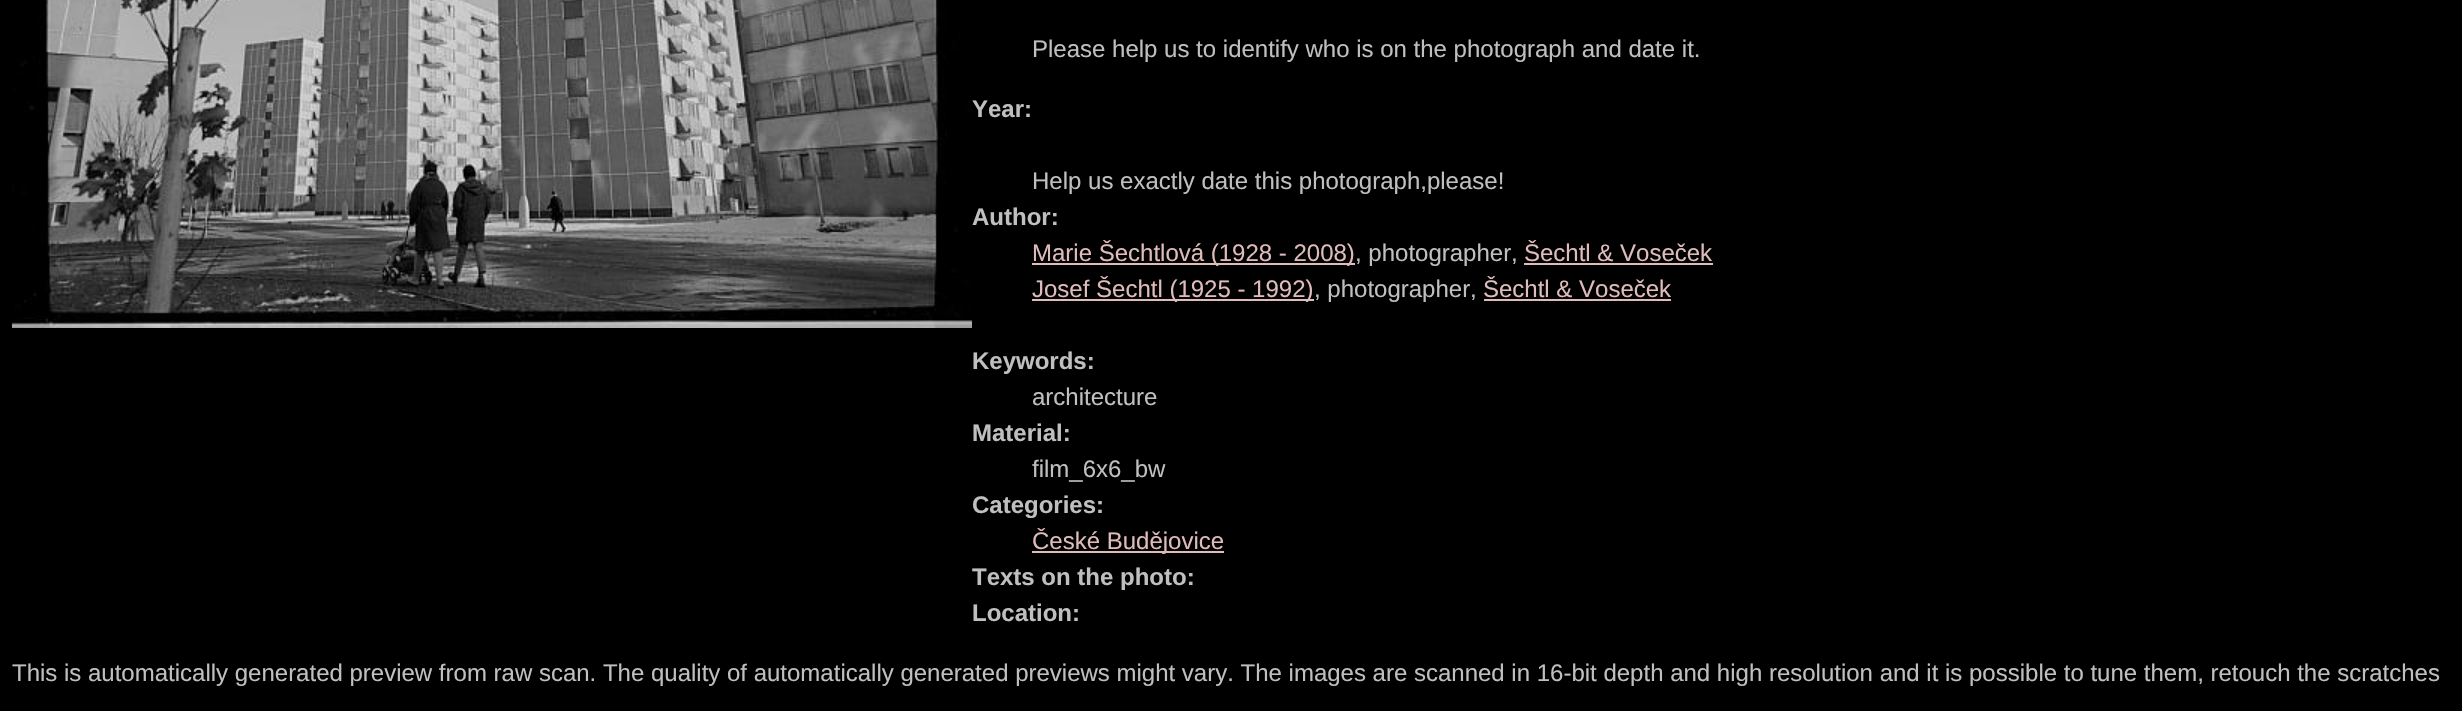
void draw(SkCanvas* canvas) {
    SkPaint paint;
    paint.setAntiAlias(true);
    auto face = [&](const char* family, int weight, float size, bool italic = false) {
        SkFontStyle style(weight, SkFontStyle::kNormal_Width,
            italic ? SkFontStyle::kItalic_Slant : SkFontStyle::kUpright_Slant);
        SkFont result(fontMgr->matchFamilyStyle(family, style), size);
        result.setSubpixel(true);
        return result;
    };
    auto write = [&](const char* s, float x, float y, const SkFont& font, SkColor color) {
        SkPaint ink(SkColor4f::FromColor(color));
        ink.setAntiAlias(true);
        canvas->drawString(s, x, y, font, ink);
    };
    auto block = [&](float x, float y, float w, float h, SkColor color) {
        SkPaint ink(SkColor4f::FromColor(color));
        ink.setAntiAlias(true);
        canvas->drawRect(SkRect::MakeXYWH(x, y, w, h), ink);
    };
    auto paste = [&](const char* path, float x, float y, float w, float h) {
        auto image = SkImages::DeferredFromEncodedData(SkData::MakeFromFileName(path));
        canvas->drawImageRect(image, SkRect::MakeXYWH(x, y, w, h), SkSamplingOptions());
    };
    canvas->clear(SK_ColorBLACK);
    paste("pic1.png", 12, 0, 960, 328);
    auto kFont1 = face("Liberation Sans", 400, 24);
    write("Please help us to identify who is on the photograph and date it.", 1032, 57, kFont1, SkColorSetRGB(191, 191, 191));
    auto kFont2 = face("Liberation Sans", 700, 24);
    write("Year:", 972, 117, kFont2, SkColorSetRGB(191, 191, 191));
    write("Help us exactly date this photograph,please!", 1032, 189, kFont1, SkColorSetRGB(191, 191, 191));
    write("Author:", 972, 225, kFont2, SkColorSetRGB(191, 191, 191));
    block(1032, 263, 323, 2, SkColorSetRGB(223, 187, 187));
    write("Marie Šechtlová (1928 - 2008)", 1032, 261, kFont1, SkColorSetRGB(223, 187, 187));
    write(", photographer,", 1355, 261, kFont1, SkColorSetRGB(191, 191, 191));
    write("Šechtl & Voseček", 1524, 261, kFont1, SkColorSetRGB(223, 187, 187));
    block(1524, 263, 189, 2, SkColorSetRGB(223, 187, 187));
    block(1032, 299, 282, 2, SkColorSetRGB(223, 187, 187));
    write("Josef Šechtl (1925 - 1992)", 1032, 297, kFont1, SkColorSetRGB(223, 187, 187));
    write(", photographer,", 1314, 297, kFont1, SkColorSetRGB(191, 191, 191));
    write("Šechtl & Voseček", 1483, 297, kFont1, SkColorSetRGB(223, 187, 187));
    block(1484, 299, 187, 2, SkColorSetRGB(223, 187, 187));
    write("Keywords:", 972, 369, kFont2, SkColorSetRGB(191, 191, 191));
    write("architecture", 1032, 405, kFont1, SkColorSetRGB(191, 191, 191));
    write("Material:", 972, 441, kFont2, SkColorSetRGB(191, 191, 191));
    write("film_6x6_bw", 1032, 477, kFont1, SkColorSetRGB(191, 191, 191));
    write("Categories:", 972, 513, kFont2, SkColorSetRGB(191, 191, 191));
    block(1032, 551, 192, 2, SkColorSetRGB(223, 187, 187));
    write("České Budějovice", 1032, 549, kFont1, SkColorSetRGB(223, 187, 187));
    write("Texts on the photo:", 972, 585, kFont2, SkColorSetRGB(191, 191, 191));
    write("Location:", 972, 621, kFont2, SkColorSetRGB(191, 191, 191));
    write("This is automatically generated preview from raw scan. The quality of automatically generated previews might vary. The images are scanned in 16-bit depth and high resolution and it is possible to tune them, retouch the scratches", 12, 681, kFont1, SkColorSetRGB(191, 191, 191));
}
